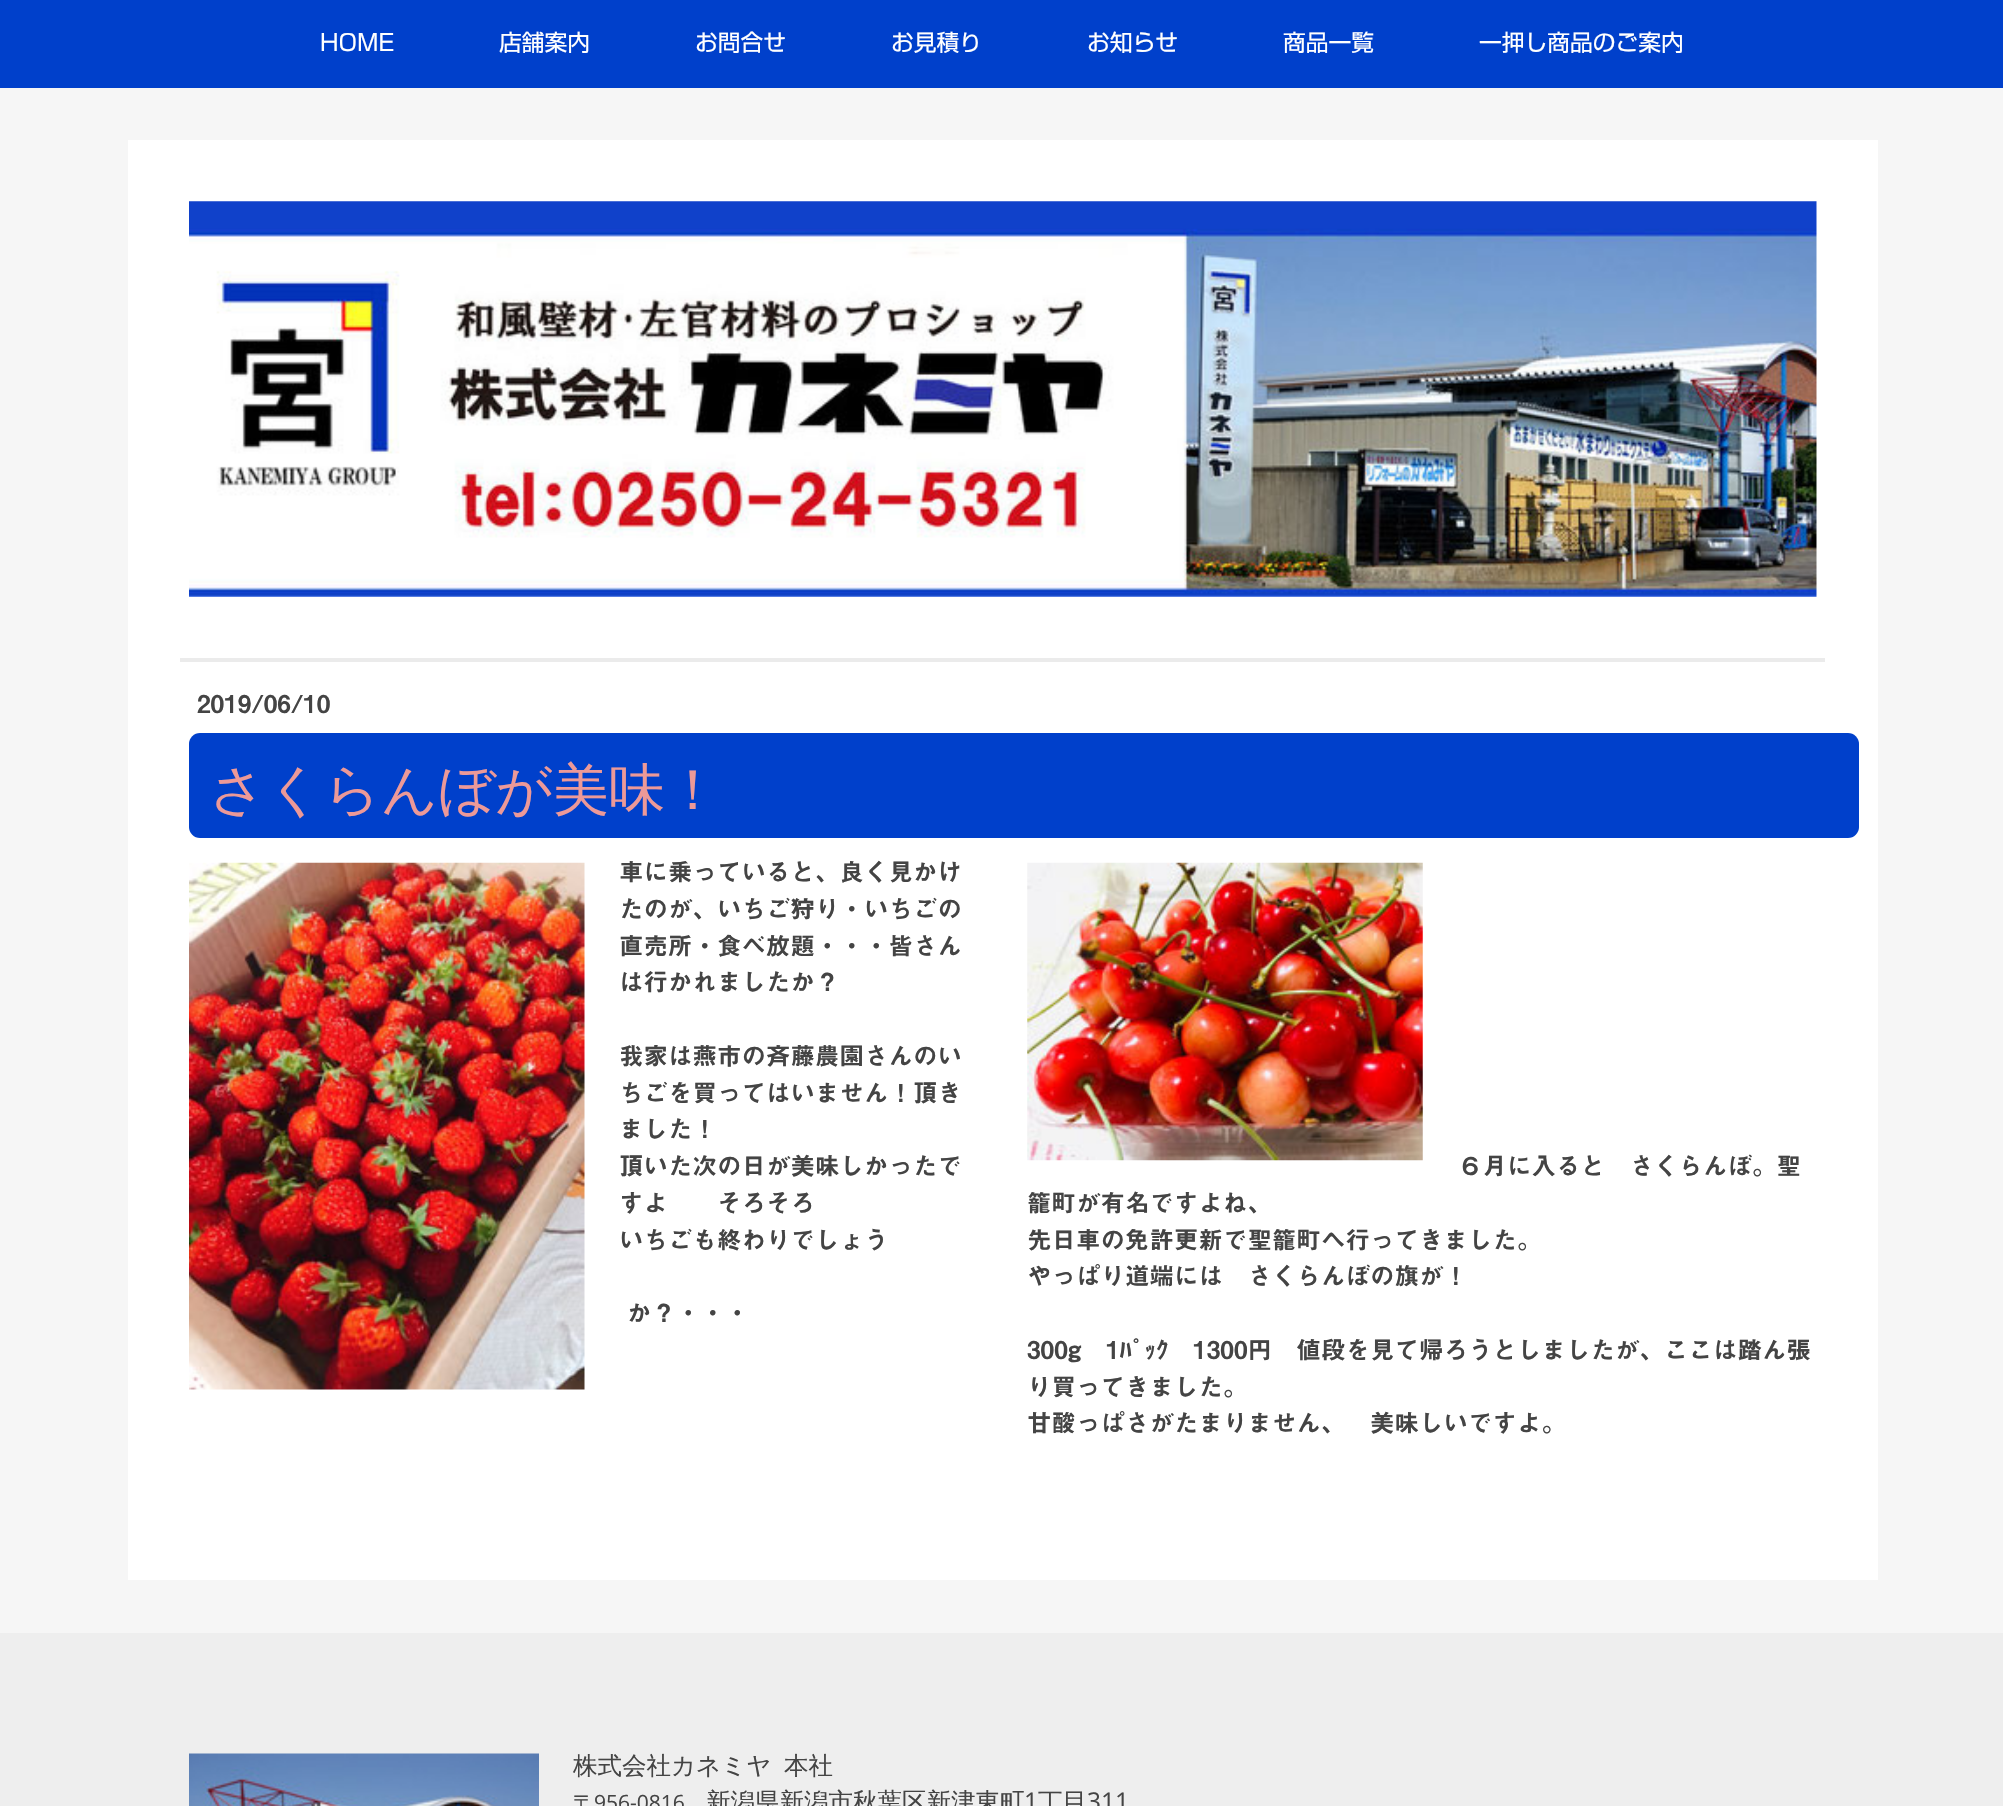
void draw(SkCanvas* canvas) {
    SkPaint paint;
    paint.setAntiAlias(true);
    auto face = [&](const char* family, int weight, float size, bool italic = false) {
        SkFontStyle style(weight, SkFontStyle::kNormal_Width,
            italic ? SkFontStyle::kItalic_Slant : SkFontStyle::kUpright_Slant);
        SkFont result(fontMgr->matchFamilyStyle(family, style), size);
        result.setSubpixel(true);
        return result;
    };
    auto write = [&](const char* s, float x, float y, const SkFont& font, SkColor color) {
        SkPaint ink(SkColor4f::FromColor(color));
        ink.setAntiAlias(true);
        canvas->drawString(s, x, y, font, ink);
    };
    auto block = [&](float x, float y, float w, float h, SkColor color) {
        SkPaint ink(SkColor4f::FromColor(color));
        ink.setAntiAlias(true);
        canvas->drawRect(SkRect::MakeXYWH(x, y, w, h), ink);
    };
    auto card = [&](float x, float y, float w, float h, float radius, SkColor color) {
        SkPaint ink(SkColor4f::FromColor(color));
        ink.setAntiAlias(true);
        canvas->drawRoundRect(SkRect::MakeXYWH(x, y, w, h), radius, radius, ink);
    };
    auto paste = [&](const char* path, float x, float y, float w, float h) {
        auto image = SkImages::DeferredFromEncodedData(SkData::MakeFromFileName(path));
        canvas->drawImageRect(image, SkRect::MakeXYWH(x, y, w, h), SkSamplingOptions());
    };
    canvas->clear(SkColorSetRGB(246, 246, 246));
    block(0, 0, 2003, 88, SkColorSetRGB(0, 64, 203));
    auto kFont1 = face("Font", 400, 22.75f);
    write("HOME", 320, 51, kFont1, SK_ColorWHITE);
    write("店舗案内", 499, 51, kFont1, SK_ColorWHITE);
    write("お問合せ", 695, 51, kFont1, SK_ColorWHITE);
    write("お見積り", 891, 51, kFont1, SK_ColorWHITE);
    write("お知らせ", 1087, 51, kFont1, SK_ColorWHITE);
    write("商品一覧", 1283, 51, kFont1, SK_ColorWHITE);
    write("一押し商品のご案内", 1479, 51, kFont1, SK_ColorWHITE);
    block(128, 140, 1750, 1440, SK_ColorWHITE);
    block(180, 658, 1645, 4, SkColorSetRGB(235, 235, 235));
    paste("pic1.png", 189, 201, 1628, 396);
    auto kFont2 = face("Font", 600, 24.5f);
    write("2019/06/10", 197, 713, kFont2, SkColorSetRGB(68, 68, 68));
    card(189, 733, 1670, 105, 11, SkColorSetRGB(0, 64, 203));
    auto kFont3 = face("WenQuanYi Zen Hei", 500, 56);
    write("さくらんぼが美味！", 209, 809, kFont3, SkColorSetRGB(236, 153, 152));
    paste("pic2.png", 189, 862, 396, 528);
    write("車に乗っていると、良く見かけ", 619, 881, kFont2, SkColorSetRGB(68, 68, 68));
    write("たのが、いちご狩り・いちごの", 619, 918, kFont2, SkColorSetRGB(68, 68, 68));
    write("直売所・食べ放題・・・皆さん", 619, 955, kFont2, SkColorSetRGB(68, 68, 68));
    write("は行かれましたか？", 619, 991, kFont2, SkColorSetRGB(68, 68, 68));
    write("我家は燕市の斉藤農園さんのい", 619, 1065, kFont2, SkColorSetRGB(68, 68, 68));
    write("ちごを買ってはいません！頂き", 619, 1102, kFont2, SkColorSetRGB(68, 68, 68));
    write("ました！", 619, 1138, kFont2, SkColorSetRGB(68, 68, 68));
    write("頂いた次の日が美味しかったで", 619, 1175, kFont2, SkColorSetRGB(68, 68, 68));
    write("すよ　　そろそろ", 619, 1212, kFont2, SkColorSetRGB(68, 68, 68));
    write("いちごも終わりでしょう", 619, 1249, kFont2, SkColorSetRGB(68, 68, 68));
    write("か？・・・", 627, 1322, kFont2, SkColorSetRGB(68, 68, 68));
    paste("pic3.png", 1027, 862, 396, 299);
    write("６月に入ると　さくらんぼ。聖", 1458, 1175, kFont2, SkColorSetRGB(68, 68, 68));
    write("籠町が有名ですよね、", 1027, 1212, kFont2, SkColorSetRGB(68, 68, 68));
    write("先日車の免許更新で聖籠町へ行ってきました。", 1027, 1249, kFont2, SkColorSetRGB(68, 68, 68));
    write("やっぱり道端には　さくらんぼの旗が！", 1027, 1285, kFont2, SkColorSetRGB(68, 68, 68));
    write("300g　1ﾊﾟｯｸ　1300円　値段を見て帰ろうとしましたが、ここは踏ん張", 1027, 1359, kFont2, SkColorSetRGB(68, 68, 68));
    write("り買ってきました。", 1027, 1396, kFont2, SkColorSetRGB(68, 68, 68));
    write("甘酸っぱさがたまりません、　美味しいですよ。", 1027, 1432, kFont2, SkColorSetRGB(68, 68, 68));
    block(0, 1633, 2003, 173, SkColorSetRGB(238, 238, 238));
    paste("pic4.png", 189, 1753, 350, 53);
    auto kFont4 = face("WenQuanYi Zen Hei", 500, 24.5f);
    write("株式会社カネミヤ", 573, 1774, kFont4, SkColorSetRGB(68, 68, 68));
    write("本社", 784, 1774, kFont4, SkColorSetRGB(68, 68, 68));
    auto kFont5 = face("WenQuanYi Zen Hei", 500, 21);
    write("〒", 573, 1810, kFont5, SkColorSetRGB(68, 68, 68));
    auto kFont6 = face("Open Sans", 400, 21);
    write("956-0816", 594, 1810, kFont6, SkColorSetRGB(68, 68, 68));
    write("新潟県新潟市秋葉区新津東町", 706, 1810, kFont4, SkColorSetRGB(68, 68, 68));
    auto kFont7 = face("Open Sans", 400, 24.5f);
    write("1", 1024, 1810, kFont7, SkColorSetRGB(68, 68, 68));
    write("丁目", 1038, 1810, kFont4, SkColorSetRGB(68, 68, 68));
    write("311", 1087, 1810, kFont7, SkColorSetRGB(68, 68, 68));
}
